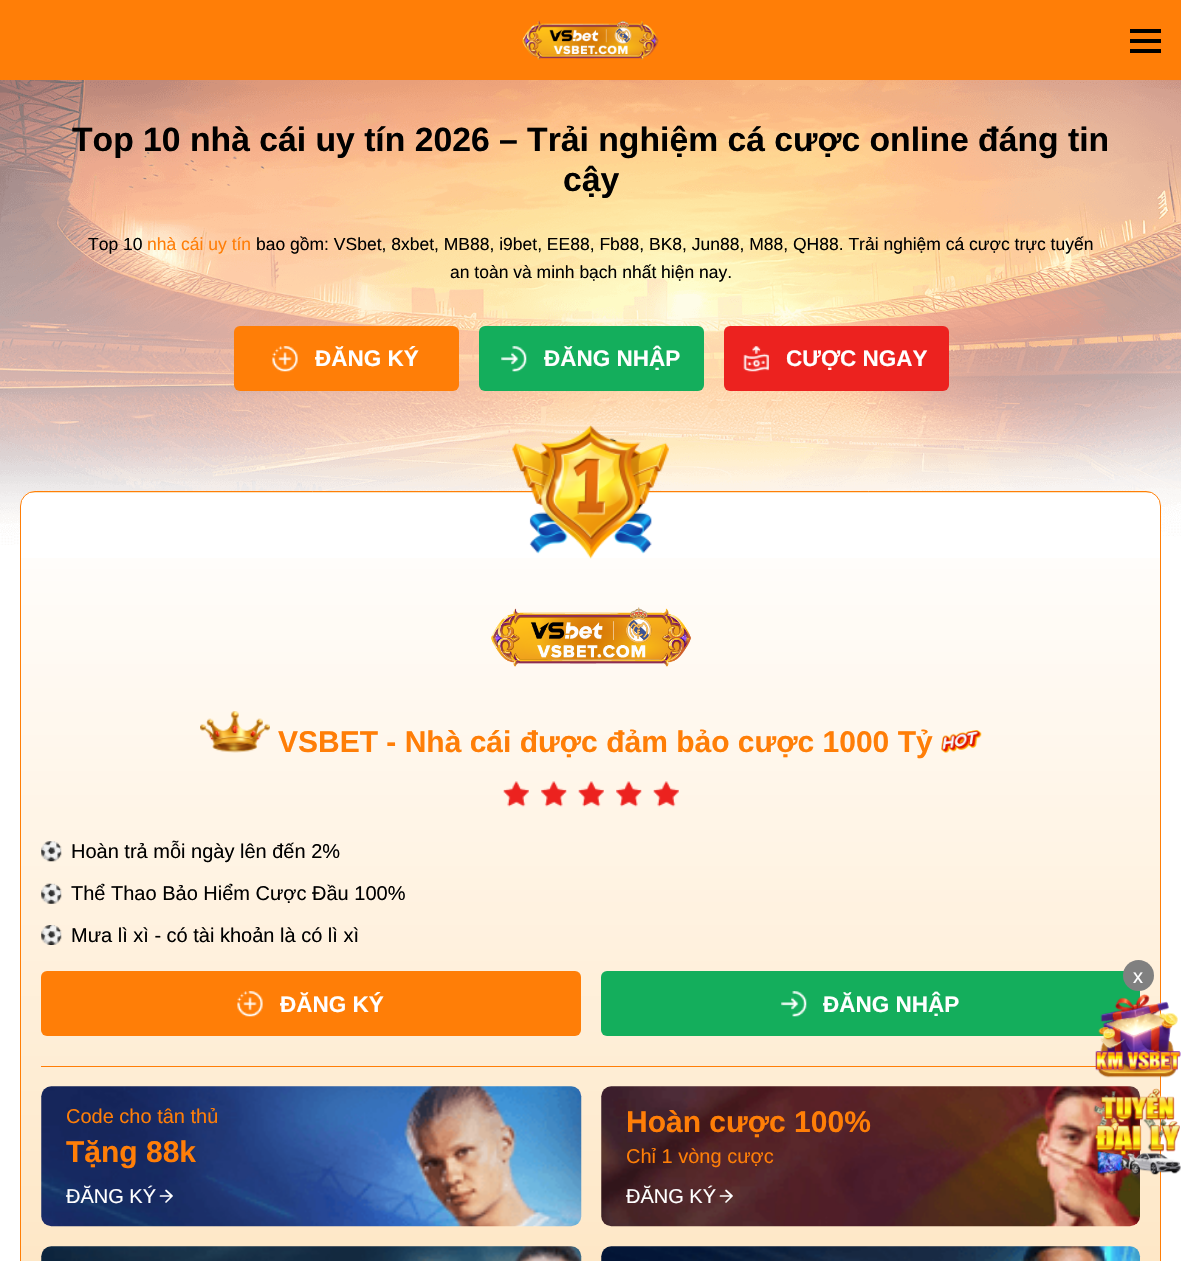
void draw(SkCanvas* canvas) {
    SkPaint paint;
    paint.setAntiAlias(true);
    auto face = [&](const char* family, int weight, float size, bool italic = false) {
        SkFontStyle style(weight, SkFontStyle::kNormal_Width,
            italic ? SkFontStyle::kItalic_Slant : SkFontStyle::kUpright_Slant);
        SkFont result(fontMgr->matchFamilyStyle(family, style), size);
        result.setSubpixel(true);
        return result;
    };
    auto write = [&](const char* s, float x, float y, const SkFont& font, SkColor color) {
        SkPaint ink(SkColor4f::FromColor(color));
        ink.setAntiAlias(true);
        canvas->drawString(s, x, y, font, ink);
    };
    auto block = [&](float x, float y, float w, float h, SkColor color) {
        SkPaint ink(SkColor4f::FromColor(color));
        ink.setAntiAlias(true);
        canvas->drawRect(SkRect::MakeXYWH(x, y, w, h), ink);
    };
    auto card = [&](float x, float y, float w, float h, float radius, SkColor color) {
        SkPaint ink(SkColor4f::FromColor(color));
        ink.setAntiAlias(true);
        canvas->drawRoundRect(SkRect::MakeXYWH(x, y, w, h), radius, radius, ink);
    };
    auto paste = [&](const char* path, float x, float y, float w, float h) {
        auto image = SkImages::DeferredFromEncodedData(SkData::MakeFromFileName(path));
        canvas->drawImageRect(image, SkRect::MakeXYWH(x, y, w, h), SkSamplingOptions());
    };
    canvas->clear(SK_ColorWHITE);
    block(0, 0, 1181, 80, SkColorSetRGB(255, 126, 7));
    paste("pic1.png", 522, 20, 137, 40);
    block(1130, 29, 31, 4, SK_ColorBLACK);
    block(1130, 39, 31, 4, SK_ColorBLACK);
    block(1130, 49, 31, 4, SK_ColorBLACK);
    paste("pic2.png", 0, 80, 1181, 465);
    auto kFont1 = face("Liberation Sans", 700, 33.7f);
    write("Top 10 nhà cái uy tín 2026 – Trải nghiệm cá cược online đáng tin", 72, 151, kFont1, SK_ColorBLACK);
    write("cậy", 563, 191, kFont1, SK_ColorBLACK);
    auto kFont2 = face("Liberation Sans", 400, 17.5f);
    write("Top 10", 88, 250, kFont2, SK_ColorBLACK);
    write("nhà cái uy tín", 147, 250, kFont2, SkColorSetRGB(255, 126, 7));
    write("bao gồm: VSbet, 8xbet, MB88, i9bet, EE88, Fb88, BK8, Jun88, M88, QH88. Trải nghiệm cá cược trực tuyến", 256, 250, kFont2, SK_ColorBLACK);
    write("an toàn và minh bạch nhất hiện nay.", 450, 278, kFont2, SK_ColorBLACK);
    card(234, 326, 225, 65, 6, SkColorSetRGB(255, 126, 7));
    paste("pic3.png", 272, 346, 26, 26);
    auto kFont3 = face("Liberation Sans", 700, 22.5f);
    write("ĐĂNG KÝ", 315, 366, kFont3, SK_ColorWHITE);
    card(479, 326, 225, 65, 6, SkColorSetRGB(20, 174, 92));
    paste("pic4.png", 501, 346, 26, 26);
    write("ĐĂNG NHẬP", 544, 366, kFont3, SK_ColorWHITE);
    card(724, 326, 225, 65, 6, SkColorSetRGB(236, 34, 31));
    paste("pic5.png", 743, 346, 26, 26);
    write("CƯỢC NGAY", 786, 366, kFont3, SK_ColorWHITE);
    card(20, 491, 1141, 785, 15, SK_ColorWHITE);
    canvas->save();
    canvas->clipPath(SkPathBuilder().moveTo(35, 491).lineTo(1146, 491).cubicTo(1154.5f, 491, 1161, 497.5f, 1161, 506).lineTo(1161, 1393).cubicTo(1161, 1401.5f, 1154.5f, 1408, 1146, 1408).lineTo(35, 1408).cubicTo(26.5f, 1408, 20, 1401.5f, 20, 1393).lineTo(20, 506).cubicTo(20, 497.5f, 26.5f, 491, 35, 491).close().detach(), true);
    {
        const SkColor colors[] = {SkColorSetARGB(0, 252, 161, 32), SkColorSetARGB(77, 252, 161, 32)};
        const float stops[] = {0, 1};
        const SkPoint ends[] = {{591, -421}, {591, 493}};
        paint.setShader(SkGradientShader::MakeLinear(ends, colors, stops, 2, SkTileMode::kClamp));
        paint.setAlpha(255);
    }
    canvas->drawRect(SkRect::MakeXYWH(20, 491, 1141, 2), paint);
    canvas->restore();
    {
        const SkColor colors[] = {SkColorSetARGB(0, 252, 161, 32), SkColorSetARGB(77, 252, 161, 32)};
        const float stops[] = {0, 1};
        const SkPoint ends[] = {{591, 492}, {591, 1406}};
        paint.setShader(SkGradientShader::MakeLinear(ends, colors, stops, 2, SkTileMode::kClamp));
        paint.setAlpha(255);
    }
    canvas->drawRect(SkRect::MakeXYWH(21, 558, 1139, 703), paint);
    paint.setStyle(SkPaint::kStroke_Style);
    paint.setStrokeWidth(1);
    paint.setShader(nullptr);
    paint.setColor(SkColorSetRGB(255, 126, 7));
    canvas->drawRoundRect(SkRect::MakeXYWH(20.5f, 491.5f, 1140, 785), 14.5f, 14.5f, paint);
    paste("pic6.png", 512, 425, 157, 134);
    paste("pic7.png", 491, 607, 201, 60);
    paste("pic8.png", 200, 711, 70, 42);
    auto kFont4 = face("Liberation Sans", 700, 30);
    write("VSBET - Nhà cái được đảm bảo cược 1000 Tỷ", 278, 752, kFont4, SkColorSetRGB(255, 126, 7));
    paste("pic9.png", 941, 730, 41, 23);
    paste("pic10.png", 503, 781, 26, 26);
    paste("pic11.png", 541, 781, 26, 26);
    paste("pic12.png", 578, 781, 26, 26);
    paste("pic11.png", 616, 781, 26, 26);
    paste("pic10.png", 653, 781, 26, 26);
    paste("pic13.png", 41, 841, 21, 21);
    auto kFont5 = face("Liberation Sans", 400, 20);
    write("Hoàn trả mỗi ngày lên đến 2%", 71, 858, kFont5, SK_ColorBLACK);
    paste("pic14.png", 41, 883, 21, 21);
    write("Thể Thao Bảo Hiểm Cược Đầu 100%", 71, 900, kFont5, SK_ColorBLACK);
    paste("pic15.png", 41, 925, 21, 20);
    write("Mưa lì xì - có tài khoản là có lì xì", 71, 942, kFont5, SK_ColorBLACK);
    card(41, 971, 540, 65, 6, SkColorSetRGB(255, 126, 7));
    paste("pic16.png", 237, 991, 26, 26);
    write("ĐĂNG KÝ", 280, 1012, kFont3, SK_ColorWHITE);
    card(601, 971, 539, 65, 6, SkColorSetRGB(20, 174, 92));
    paste("pic17.png", 781, 991, 26, 26);
    write("ĐĂNG NHẬP", 823, 1012, kFont3, SK_ColorWHITE);
    block(41, 1066, 1055, 1, SkColorSetRGB(255, 126, 7));
    paste("pic18.png", 41, 1086, 541, 141);
    write("Code cho tân thủ", 66, 1123, kFont5, SkColorSetRGB(255, 126, 7));
    write("Tặng 88k", 66, 1162, kFont4, SkColorSetRGB(255, 126, 7));
    write("ĐĂNG KÝ", 66, 1203, kFont5, SK_ColorWHITE);
    paint.setStrokeWidth(1.7f);
    paint.setStrokeCap(SkPaint::kRound_Cap);
    paint.setStrokeJoin(SkPaint::kRound_Join);
    paint.setColor(SK_ColorWHITE);
    canvas->drawPath(SkPathBuilder().moveTo(160.5f, 1196).lineTo(172, 1196).moveTo(166, 1190.5f).lineTo(172, 1196).lineTo(166, 1202).detach(), paint);
    paste("pic19.png", 601, 1086, 540, 141);
    write("Hoàn cược 100%", 626, 1132, kFont4, SkColorSetRGB(255, 126, 7));
    write("Chỉ 1 vòng cược", 626, 1163, kFont5, SkColorSetRGB(255, 126, 7));
    write("ĐĂNG KÝ", 626, 1203, kFont5, SK_ColorWHITE);
    canvas->drawPath(SkPathBuilder().moveTo(720.5f, 1196).lineTo(732, 1196).moveTo(726, 1190.5f).lineTo(732, 1196).lineTo(726, 1202).detach(), paint);
    paste("pic20.png", 41, 1246, 541, 15);
    paste("pic21.png", 601, 1246, 540, 15);
    paint.setStyle(SkPaint::kFill_Style);
    paint.setColor(SkColorSetRGB(128, 128, 128));
    canvas->drawCircle(1138.5f, 975.5f, 15.5f, paint);
    write("x", 1133, 983, kFont5, SK_ColorWHITE);
    paste("pic22.png", 1095, 994, 86, 84);
    paste("pic23.png", 1093, 1088, 88, 87);
}
